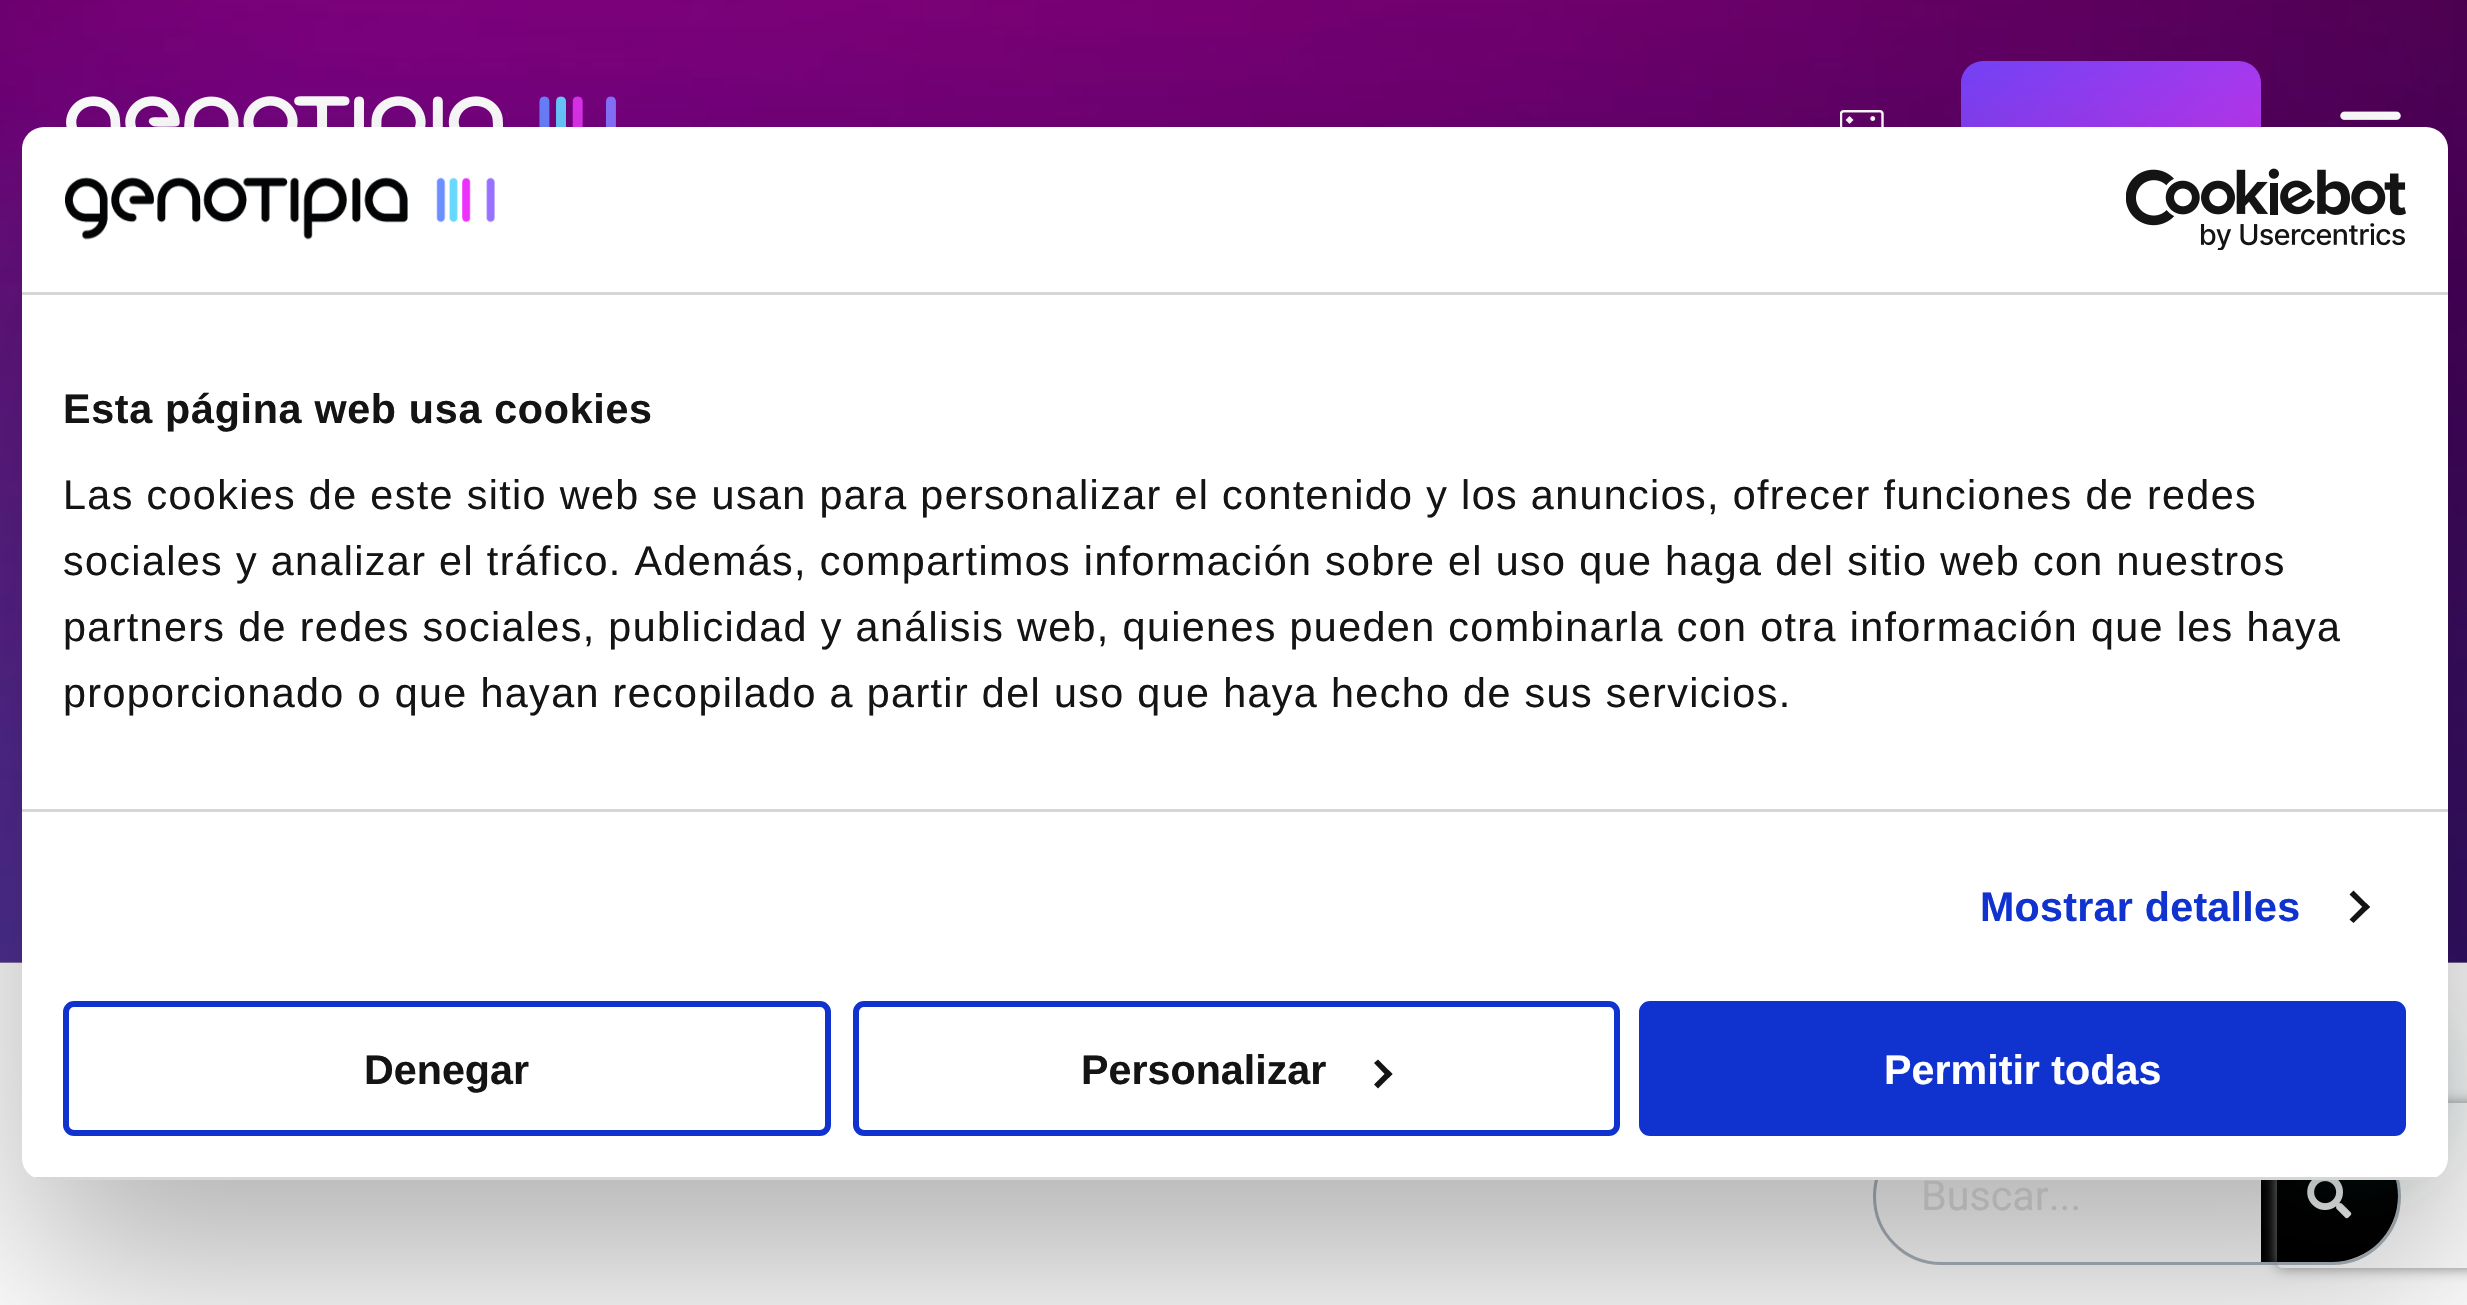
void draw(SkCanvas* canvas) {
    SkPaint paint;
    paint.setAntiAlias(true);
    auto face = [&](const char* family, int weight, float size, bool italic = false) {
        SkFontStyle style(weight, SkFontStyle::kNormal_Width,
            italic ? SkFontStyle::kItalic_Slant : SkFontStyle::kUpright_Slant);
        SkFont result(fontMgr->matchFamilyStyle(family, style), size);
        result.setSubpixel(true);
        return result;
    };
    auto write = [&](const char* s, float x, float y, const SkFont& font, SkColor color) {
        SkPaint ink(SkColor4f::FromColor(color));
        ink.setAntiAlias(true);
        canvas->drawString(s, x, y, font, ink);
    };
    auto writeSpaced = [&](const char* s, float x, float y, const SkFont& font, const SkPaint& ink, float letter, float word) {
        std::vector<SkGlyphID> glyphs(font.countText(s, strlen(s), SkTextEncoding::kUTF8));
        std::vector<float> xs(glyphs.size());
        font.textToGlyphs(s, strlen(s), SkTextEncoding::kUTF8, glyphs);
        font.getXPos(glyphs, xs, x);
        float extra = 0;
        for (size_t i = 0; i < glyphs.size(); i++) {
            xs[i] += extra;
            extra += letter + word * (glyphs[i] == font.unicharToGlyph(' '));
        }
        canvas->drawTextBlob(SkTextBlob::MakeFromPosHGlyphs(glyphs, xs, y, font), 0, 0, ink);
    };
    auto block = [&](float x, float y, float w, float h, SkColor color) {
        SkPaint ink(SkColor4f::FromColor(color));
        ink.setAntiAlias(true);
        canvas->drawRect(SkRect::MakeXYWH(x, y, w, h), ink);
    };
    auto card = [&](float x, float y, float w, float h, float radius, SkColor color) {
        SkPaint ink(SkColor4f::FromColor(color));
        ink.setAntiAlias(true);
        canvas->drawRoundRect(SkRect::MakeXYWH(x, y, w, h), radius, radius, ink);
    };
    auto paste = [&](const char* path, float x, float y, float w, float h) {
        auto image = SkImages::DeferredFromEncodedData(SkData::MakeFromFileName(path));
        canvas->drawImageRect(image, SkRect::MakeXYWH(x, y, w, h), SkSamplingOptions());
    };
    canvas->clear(SK_ColorWHITE);
    block(0, 962, 2467, 1, SkColorSetRGB(191, 191, 191));
    paste("pic6.png", 0, 0, 2467, 963);
    paste("pic3.png", 66, 96, 550, 31);
    paste("pic4.png", 1840, 110, 44, 17);
    {
        const SkColor colors[] = {SkColorSetRGB(221, 49, 236), SkColorSetRGB(111, 67, 248)};
        const float stops[] = {0, 1};
        const SkPoint ends[] = {{2223, 274}, {2058, -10}};
        paint.setShader(SkGradientShader::MakeLinear(ends, colors, stops, 2, SkTileMode::kClamp));
        paint.setAlpha(255);
    }
    canvas->drawRoundRect(SkRect::MakeXYWH(1961, 61, 300, 143), 22, 22, paint);
    paste("pic5.png", 2340, 111, 61, 9);
    paint.setStyle(SkPaint::kStroke_Style);
    paint.setStrokeWidth(3);
    paint.setShader(nullptr);
    paint.setColor(SkColorSetRGB(173, 182, 190));
    canvas->drawRoundRect(SkRect::MakeXYWH(1874.5f, 1129.5f, 525, 134), 67, 67, paint);
    paint.setStyle(SkPaint::kFill_Style);
    paint.setColor(SK_ColorBLACK);
    canvas->drawPath(SkPathBuilder().moveTo(2261, 1130).lineTo(2332, 1130).cubicTo(2368.5f, 1130, 2398, 1159.5f, 2398, 1196).cubicTo(2398, 1232.5f, 2368.5f, 1262, 2332, 1262).lineTo(2261, 1262).close().detach(), paint);
    paste("pic7.png", 2307, 1180, 45, 39);
    paint.setColor(SkColorSetARGB(77, 0, 0, 0));
    paint.setMaskFilter(SkMaskFilter::MakeBlur(kNormal_SkBlurStyle, 93.5f));
    canvas->drawRoundRect(SkRect::MakeXYWH(22, 215, 2426, 1053), 22, 22, paint);
    paint.setMaskFilter(nullptr);
    canvas->save();
    canvas->clipPath(SkPathBuilder(SkPathFillType::kEvenOdd).moveTo(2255, 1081).lineTo(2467, 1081).lineTo(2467, 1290).lineTo(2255, 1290).close().moveTo(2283, 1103).lineTo(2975, 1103).cubicTo(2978.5f, 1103, 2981, 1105.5f, 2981, 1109).lineTo(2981, 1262).cubicTo(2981, 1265.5f, 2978.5f, 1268, 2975, 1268).lineTo(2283, 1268).cubicTo(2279.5f, 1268, 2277, 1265.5f, 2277, 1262).lineTo(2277, 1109).cubicTo(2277, 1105.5f, 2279.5f, 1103, 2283, 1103).close().detach(), true);
    paint.setColor(SkColorSetRGB(128, 128, 128));
    paint.setMaskFilter(SkMaskFilter::MakeBlur(kNormal_SkBlurStyle, 7));
    canvas->drawRoundRect(SkRect::MakeXYWH(2277, 1103, 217, 165), 6, 6, paint);
    paint.setMaskFilter(nullptr);
    canvas->restore();
    paint.setColor(SkColorSetARGB(61, 7, 94, 84));
    paint.setMaskFilter(SkMaskFilter::MakeBlur(kNormal_SkBlurStyle, 33));
    canvas->drawRoundRect(SkRect::MakeXYWH(2269, 1004, 165, 165), 82.5f, 82.5f, paint);
    paint.setMaskFilter(nullptr);
    card(22, 127, 2426, 1053, 22, SK_ColorWHITE);
    block(22, 292, 2426, 3, SkColorSetRGB(214, 214, 214));
    paste("pic1.png", 65, 177, 430, 63);
    paste("pic2.png", 2126, 168, 280, 82);
    block(22, 809, 2426, 3, SkColorSetRGB(214, 214, 214));
    auto kFont1 = face("Liberation Sans", 700, 41.25f);
    paint.setColor(SkColorSetRGB(20, 20, 20));
    writeSpaced("Esta página web usa cookies", 63, 423, kFont1, paint, 0.7f, 0);
    auto kFont2 = face("Liberation Sans", 400, 41.25f);
    writeSpaced("Las cookies de este sitio web se usan para personalizar el contenido y los anuncios, ofrecer funciones de redes", 63, 509, kFont2, paint, 1.38f, 0);
    writeSpaced("sociales y analizar el tráfico. Además, compartimos información sobre el uso que haga del sitio web con nuestros", 63, 575, kFont2, paint, 1.38f, 0);
    writeSpaced("partners de redes sociales, publicidad y análisis web, quienes pueden combinarla con otra información que les haya", 63, 641, kFont2, paint, 1.38f, 0);
    writeSpaced("proporcionado o que hayan recopilado a partir del uso que haya hecho de sus servicios.", 63, 707, kFont2, paint, 1.38f, 0);
    paint.setColor(SkColorSetRGB(16, 50, 207));
    writeSpaced("Mostrar detalles", 1980, 921, kFont1, paint, 0.25f, 0);
    paint.setColor(SkColorSetRGB(20, 20, 20));
    canvas->drawPath(SkPathBuilder().moveTo(2353.5f, 890.5f).lineTo(2370, 907).lineTo(2366, 910.5f).lineTo(2349.5f, 894.5f).close().detach(), paint);
    canvas->drawPath(SkPathBuilder().moveTo(2366, 903).lineTo(2370, 907).lineTo(2353.5f, 923).lineTo(2349.5f, 919.5f).close().detach(), paint);
    canvas->save();
    canvas->clipPath(SkPathBuilder().moveTo(44, 127).lineTo(2426, 127).cubicTo(2438, 127, 2448, 137, 2448, 149).lineTo(2448, 1158).cubicTo(2448, 1170, 2438, 1180, 2426, 1180).lineTo(44, 1180).cubicTo(32, 1180, 22, 1170, 22, 1158).lineTo(22, 149).cubicTo(22, 137, 32, 127, 44, 127).close().detach(), true);
    block(33, 1177, 2404, 3, SkColorSetRGB(214, 214, 214));
    canvas->restore();
    paint.setStyle(SkPaint::kStroke_Style);
    paint.setStrokeWidth(6);
    paint.setColor(SkColorSetRGB(16, 50, 207));
    canvas->drawRoundRect(SkRect::MakeXYWH(66, 1004, 762, 129), 8, 8, paint);
    write("Denegar", 364, 1084, kFont1, SkColorSetRGB(20, 20, 20));
    canvas->drawRoundRect(SkRect::MakeXYWH(856, 1004, 761, 129), 8, 8, paint);
    write("Personalizar", 1081, 1084, kFont1, SkColorSetRGB(20, 20, 20));
    paint.setStyle(SkPaint::kFill_Style);
    paint.setColor(SkColorSetRGB(20, 20, 20));
    canvas->drawPath(SkPathBuilder().moveTo(1378, 1059.5f).lineTo(1392.5f, 1074).lineTo(1388.5f, 1078).lineTo(1374, 1063).close().detach(), paint);
    canvas->drawPath(SkPathBuilder().moveTo(1388.5f, 1070).lineTo(1392.5f, 1074).lineTo(1378, 1088.5f).lineTo(1374, 1084.5f).close().detach(), paint);
    paint.setColor(SkColorSetRGB(16, 50, 207));
    canvas->drawRoundRect(SkRect::MakeXYWH(1642, 1004, 761, 129), 8, 8, paint);
    paint.setStyle(SkPaint::kStroke_Style);
    canvas->drawRoundRect(SkRect::MakeXYWH(1642, 1004, 761, 129), 8, 8, paint);
    write("Permitir todas", 1884, 1084, kFont1, SK_ColorWHITE);
    auto kFont3 = face("Roboto", 400, 41.25f);
    write("Buscar...", 1921, 1210, kFont3, SkColorSetRGB(175, 175, 175));
}
